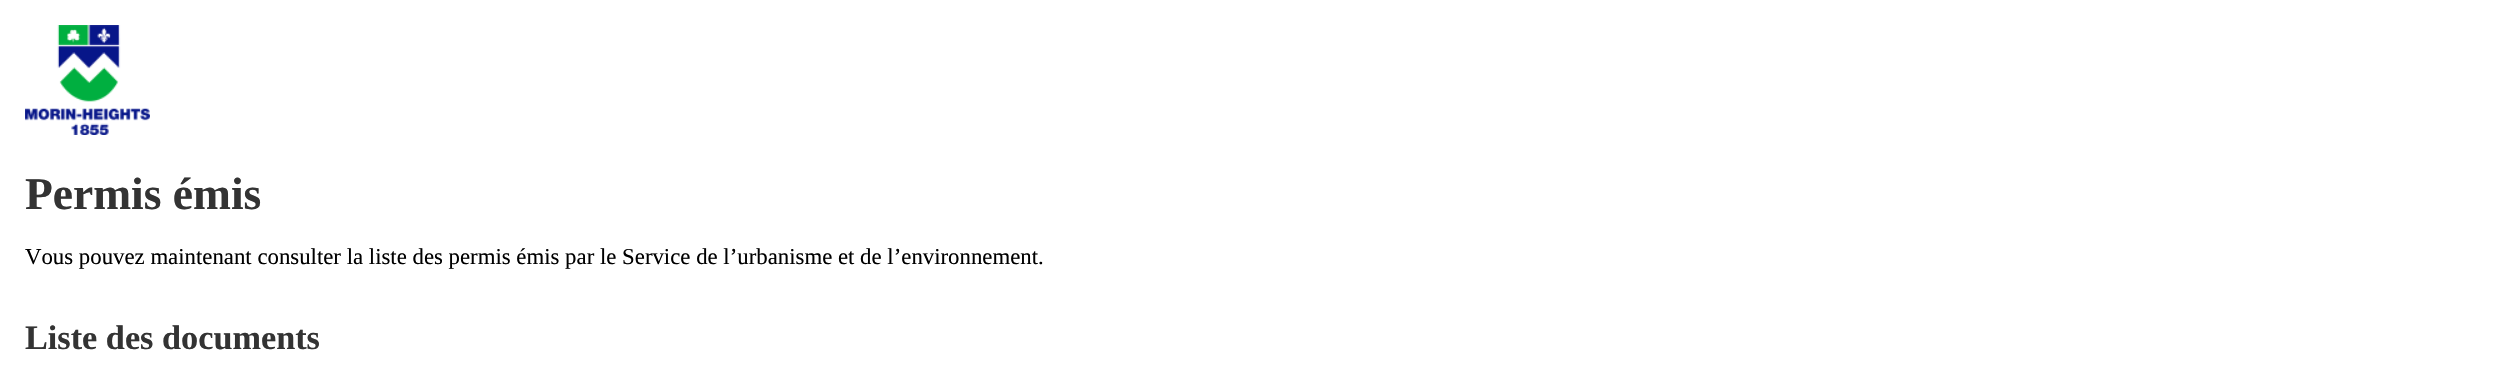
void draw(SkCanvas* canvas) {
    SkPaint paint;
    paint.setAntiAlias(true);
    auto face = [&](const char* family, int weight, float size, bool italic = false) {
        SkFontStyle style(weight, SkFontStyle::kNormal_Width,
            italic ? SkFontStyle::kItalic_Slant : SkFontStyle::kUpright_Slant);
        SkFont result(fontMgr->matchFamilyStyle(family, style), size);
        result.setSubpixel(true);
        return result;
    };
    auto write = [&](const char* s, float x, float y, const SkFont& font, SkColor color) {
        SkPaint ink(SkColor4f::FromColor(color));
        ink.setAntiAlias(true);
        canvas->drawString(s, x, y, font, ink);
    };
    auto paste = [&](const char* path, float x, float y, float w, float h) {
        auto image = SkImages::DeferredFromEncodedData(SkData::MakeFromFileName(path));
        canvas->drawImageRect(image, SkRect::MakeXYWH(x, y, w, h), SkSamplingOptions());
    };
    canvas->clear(SK_ColorWHITE);
    paste("pic1.png", 25, 25, 125, 110);
    auto kFont1 = face("Liberation Serif", 700, 45.5f);
    write("Permis émis", 25, 209, kFont1, SkColorSetRGB(51, 51, 51));
    auto kFont2 = face("Liberation Serif", 400, 22.8f);
    write("Vous pouvez maintenant consulter la liste des permis émis par le Service de l’urbanisme et de l’environnement.", 25, 264, kFont2, SK_ColorBLACK);
    auto kFont3 = face("Liberation Serif", 700, 34.25f);
    write("Liste des documents", 25, 349, kFont3, SkColorSetRGB(51, 51, 51));
}
